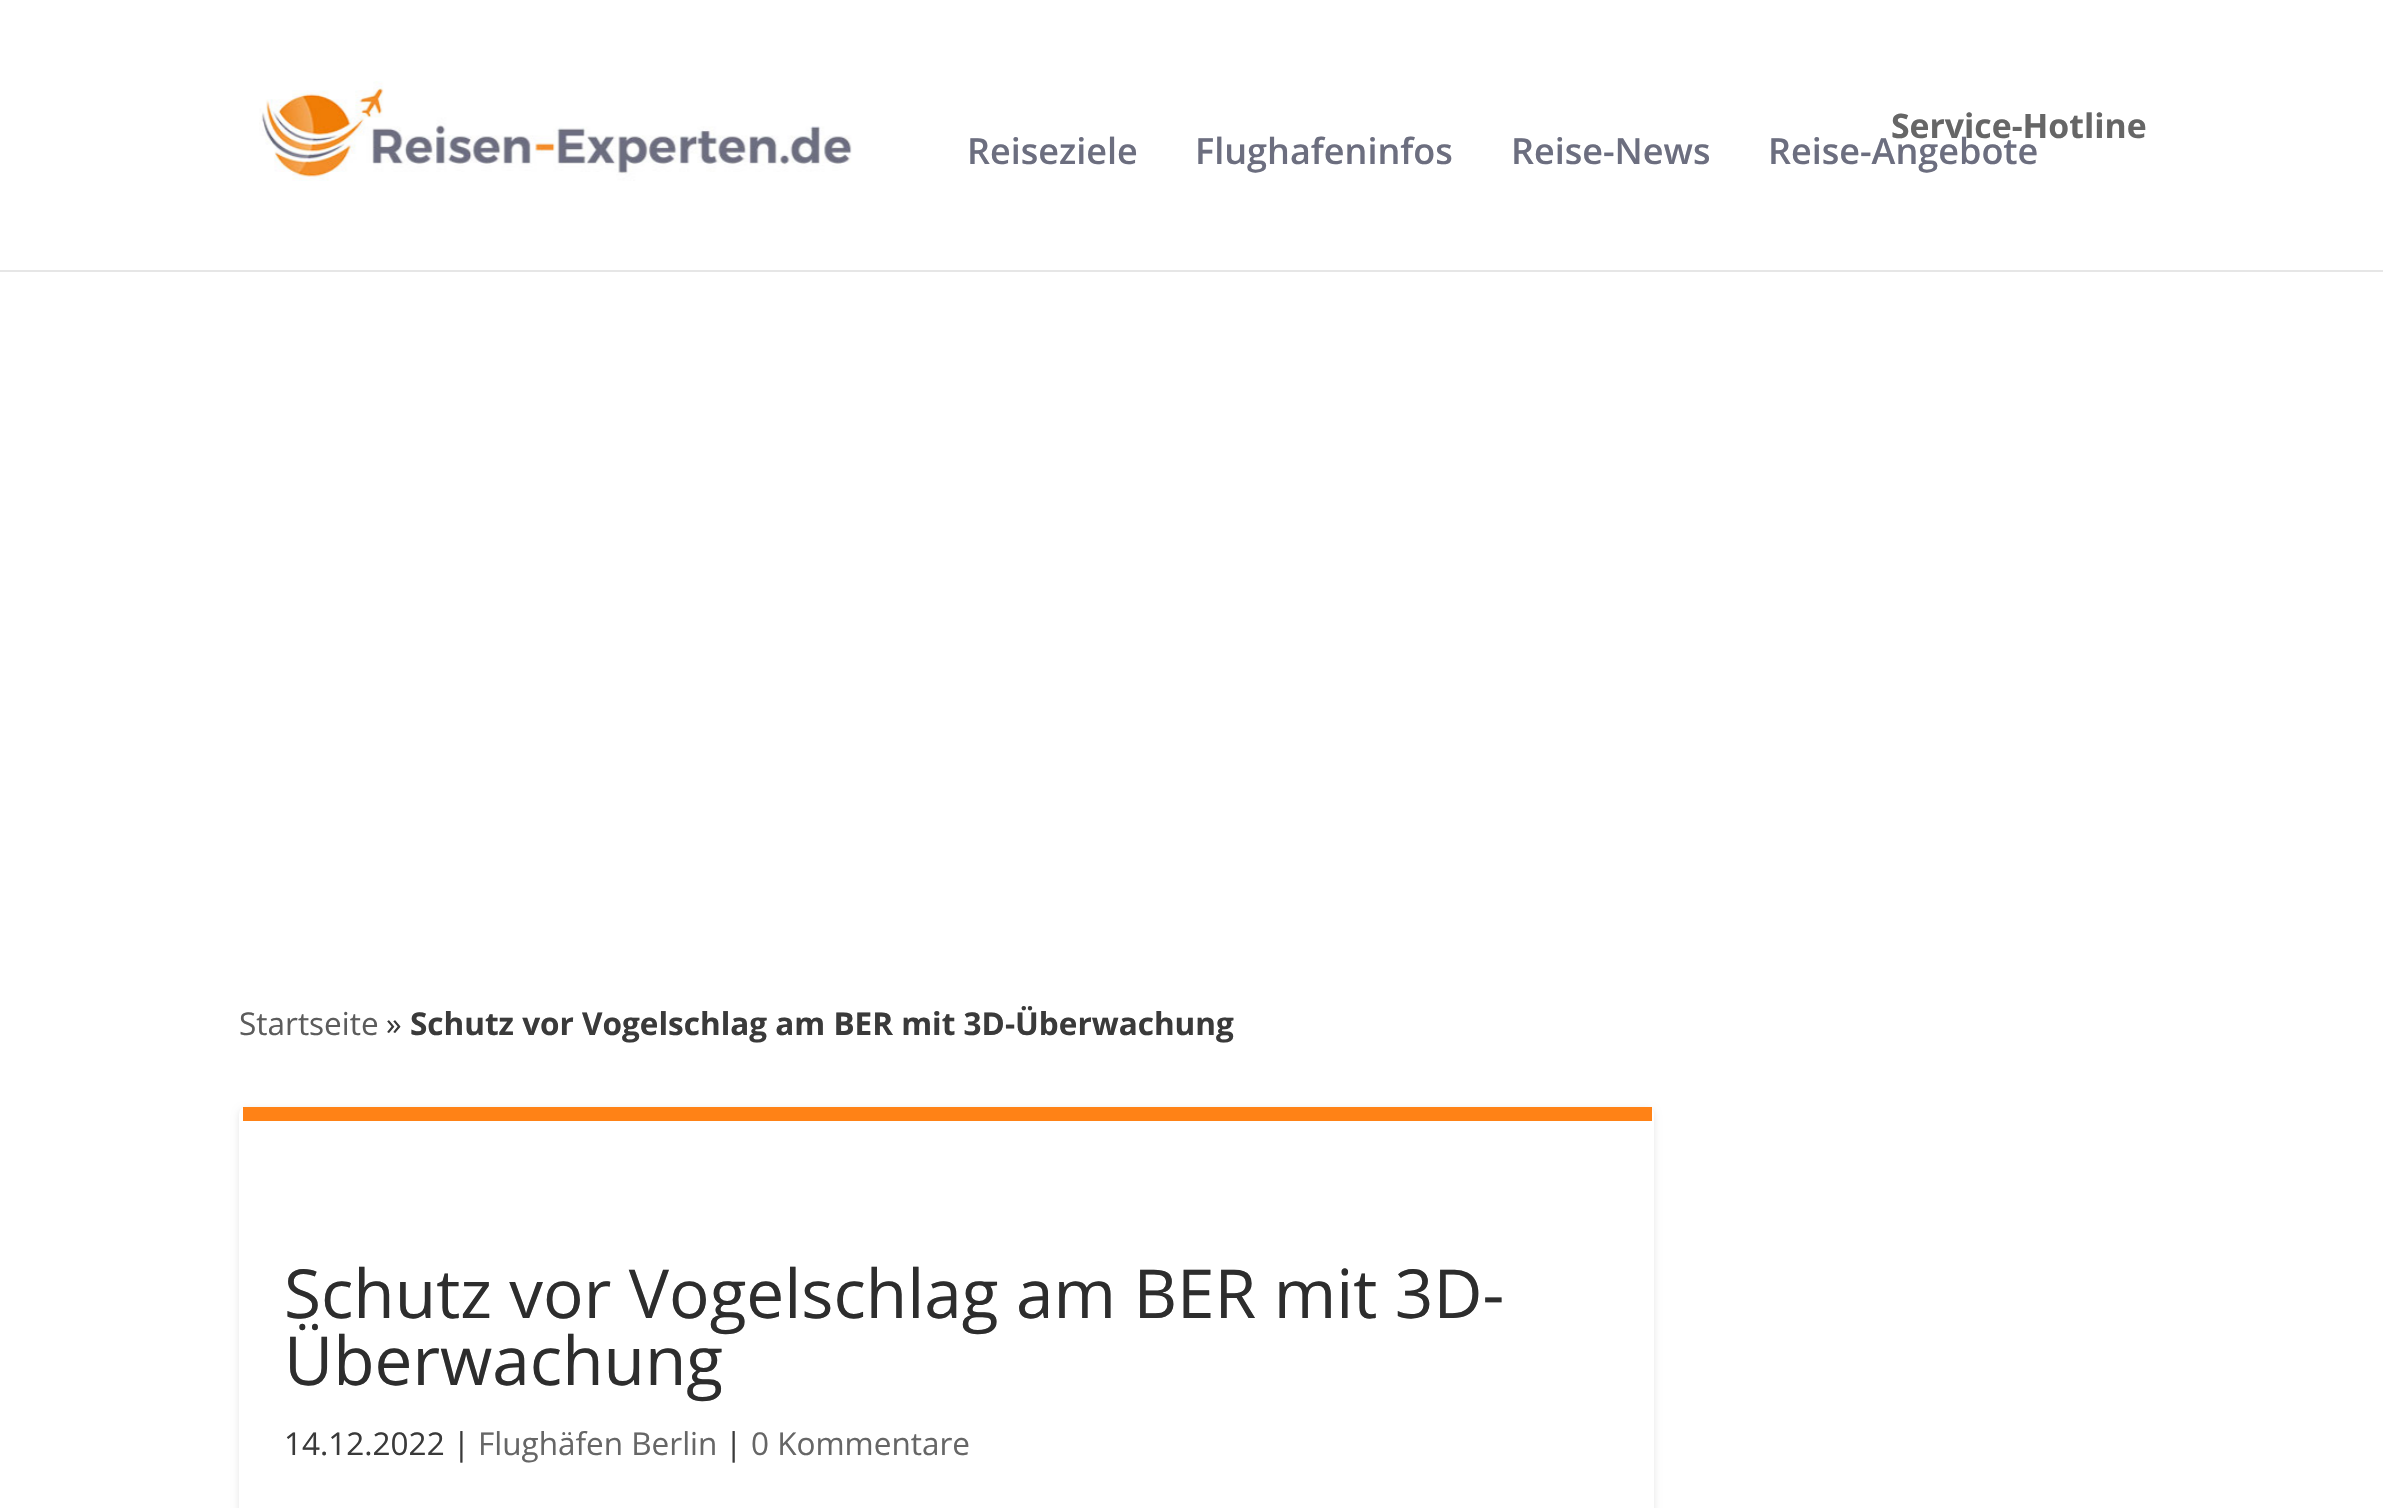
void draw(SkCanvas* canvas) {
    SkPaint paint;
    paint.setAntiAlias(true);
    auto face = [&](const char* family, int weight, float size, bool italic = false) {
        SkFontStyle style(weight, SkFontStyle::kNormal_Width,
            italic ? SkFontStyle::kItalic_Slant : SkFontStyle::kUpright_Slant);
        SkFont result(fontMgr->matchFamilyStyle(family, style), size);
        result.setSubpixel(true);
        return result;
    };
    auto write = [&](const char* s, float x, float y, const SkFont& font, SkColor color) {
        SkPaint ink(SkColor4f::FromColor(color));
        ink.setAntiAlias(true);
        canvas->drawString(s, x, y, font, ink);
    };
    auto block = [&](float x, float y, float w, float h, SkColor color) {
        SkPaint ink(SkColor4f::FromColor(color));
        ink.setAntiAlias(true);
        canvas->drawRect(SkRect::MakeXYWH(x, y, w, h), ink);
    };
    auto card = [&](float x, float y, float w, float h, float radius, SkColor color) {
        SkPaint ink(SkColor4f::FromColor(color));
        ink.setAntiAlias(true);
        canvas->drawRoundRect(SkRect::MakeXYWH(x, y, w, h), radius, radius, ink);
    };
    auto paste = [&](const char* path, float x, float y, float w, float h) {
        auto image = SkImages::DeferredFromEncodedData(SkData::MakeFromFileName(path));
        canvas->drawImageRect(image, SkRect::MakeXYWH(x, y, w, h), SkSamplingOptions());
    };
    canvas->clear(SK_ColorWHITE);
    block(0, 270, 2383, 2, SkColorSetRGB(230, 230, 230));
    paste("pic1.png", 259, 81, 593, 100);
    auto kFont1 = face("Open Sans", 700, 33.75f);
    write("Service-Hotline", 1891, 138, kFont1, SkColorSetRGB(102, 102, 102));
    auto kFont2 = face("Open Sans", 600, 36);
    write("Reiseziele", 967, 164, kFont2, SkColorSetRGB(108, 110, 127));
    write("Flughafeninfos", 1195, 164, kFont2, SkColorSetRGB(108, 110, 127));
    write("Reise-News", 1511, 164, kFont2, SkColorSetRGB(108, 110, 127));
    write("Reise-Angebote", 1768, 164, kFont2, SkColorSetRGB(108, 110, 127));
    auto kFont3 = face("Open Sans", 400, 31.5f);
    write("Startseite", 239, 1035, kFont3, SkColorSetRGB(92, 92, 92));
    write("»", 386, 1035, kFont3, SkColorSetRGB(58, 58, 58));
    auto kFont4 = face("Open Sans", 700, 31.5f);
    write("Schutz vor Vogelschlag am BER mit 3D-Überwachung", 410, 1035, kFont4, SkColorSetRGB(58, 58, 58));
    paint.setColor(SkColorSetARGB(26, 0, 0, 0));
    paint.setMaskFilter(SkMaskFilter::MakeBlur(kNormal_SkBlurStyle, 3.5f));
    canvas->drawRoundRect(SkRect::MakeXYWH(239, 1109, 1415, 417), 7, 7, paint);
    paint.setMaskFilter(nullptr);
    card(239, 1107, 1415, 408, 7, SK_ColorWHITE);
    block(243, 1107, 1409, 14, SkColorSetRGB(255, 130, 22));
    auto kFont5 = face("Open Sans", 400, 67.5f);
    write("Schutz vor Vogelschlag am BER mit 3D-", 284, 1318, kFont5, SkColorSetRGB(45, 45, 45));
    write("Überwachung", 284, 1385, kFont5, SkColorSetRGB(45, 45, 45));
    write("14.12.2022 |", 284, 1455, kFont3, SkColorSetRGB(58, 58, 58));
    write("Flughäfen Berlin", 478, 1455, kFont3, SkColorSetRGB(102, 102, 102));
    write("|", 725, 1455, kFont3, SkColorSetRGB(58, 58, 58));
    write("0 Kommentare", 751, 1455, kFont3, SkColorSetRGB(102, 102, 102));
}
